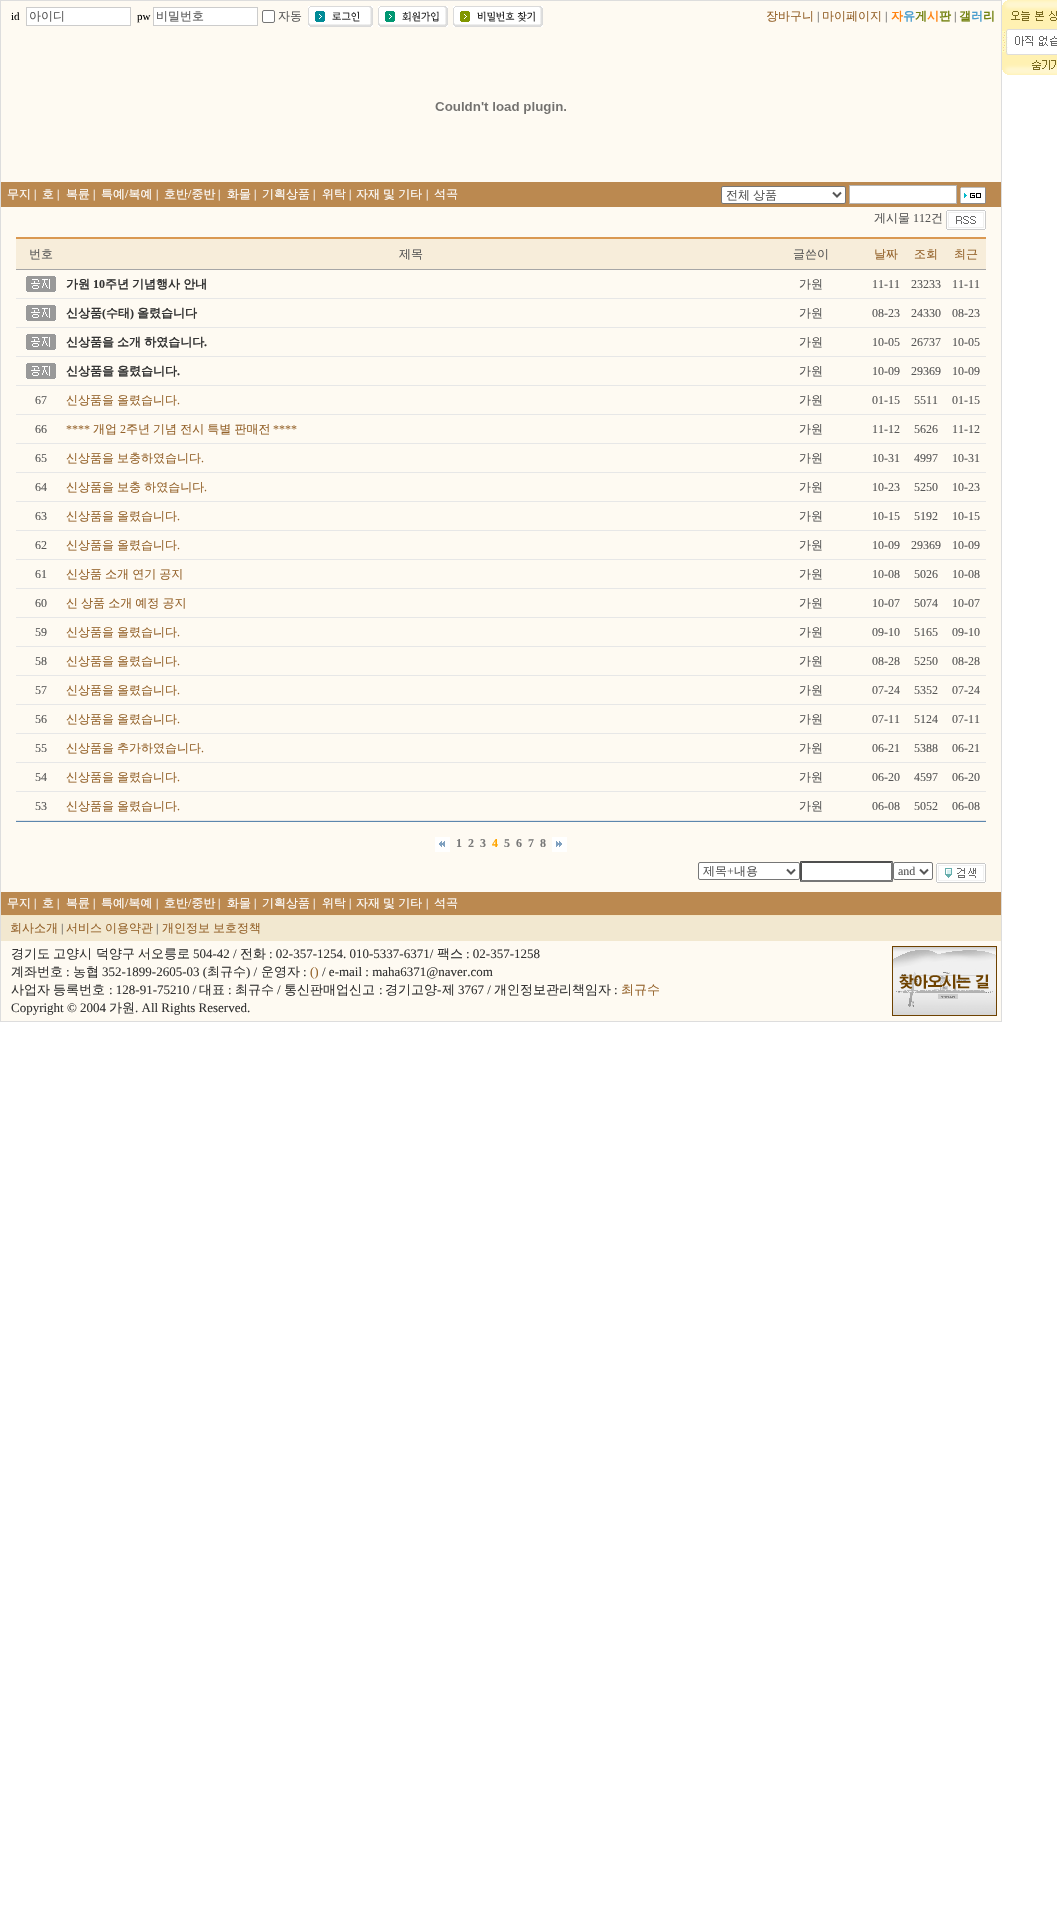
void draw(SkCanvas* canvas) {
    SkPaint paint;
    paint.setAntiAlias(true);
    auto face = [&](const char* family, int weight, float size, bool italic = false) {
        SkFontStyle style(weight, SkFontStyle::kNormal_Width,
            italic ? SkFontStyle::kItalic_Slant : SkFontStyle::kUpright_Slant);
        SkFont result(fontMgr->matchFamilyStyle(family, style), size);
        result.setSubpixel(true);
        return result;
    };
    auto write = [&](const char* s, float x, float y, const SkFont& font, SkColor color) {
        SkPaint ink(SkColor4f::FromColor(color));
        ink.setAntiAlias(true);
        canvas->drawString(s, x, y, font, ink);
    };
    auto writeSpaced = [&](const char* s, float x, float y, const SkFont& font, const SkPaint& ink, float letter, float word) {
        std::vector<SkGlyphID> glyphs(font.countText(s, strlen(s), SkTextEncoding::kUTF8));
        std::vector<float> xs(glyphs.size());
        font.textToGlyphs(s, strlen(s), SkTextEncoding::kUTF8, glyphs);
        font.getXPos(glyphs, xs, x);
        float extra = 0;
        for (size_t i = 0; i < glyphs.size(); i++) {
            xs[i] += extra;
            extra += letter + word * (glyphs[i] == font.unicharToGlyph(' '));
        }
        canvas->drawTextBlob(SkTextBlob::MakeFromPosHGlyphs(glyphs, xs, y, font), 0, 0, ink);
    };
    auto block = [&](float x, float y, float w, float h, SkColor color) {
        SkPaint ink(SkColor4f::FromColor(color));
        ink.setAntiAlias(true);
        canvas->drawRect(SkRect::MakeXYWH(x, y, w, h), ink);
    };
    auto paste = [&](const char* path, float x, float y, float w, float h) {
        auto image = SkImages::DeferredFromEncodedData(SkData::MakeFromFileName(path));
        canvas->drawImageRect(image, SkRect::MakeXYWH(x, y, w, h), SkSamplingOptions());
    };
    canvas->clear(SK_ColorWHITE);
    block(0, 0, 1002, 1022, SkColorSetRGB(221, 221, 221));
    block(1, 1, 1000, 1020, SkColorSetRGB(254, 250, 242));
    auto kFont1 = face("Liberation Serif", 400, 11);
    write("id", 11, 20, kFont1, SK_ColorBLACK);
    paint.setColor(SK_ColorWHITE);
    canvas->drawRect(SkRect::MakeXYWH(26.5f, 7.5f, 104, 18), paint);
    paint.setStyle(SkPaint::kStroke_Style);
    paint.setStrokeWidth(1);
    paint.setColor(SkColorSetRGB(204, 204, 204));
    canvas->drawRect(SkRect::MakeXYWH(26.5f, 7.5f, 104, 18), paint);
    auto kFont2 = face("WenQuanYi Zen Hei", 500, 12);
    write("아이디", 29, 20, kFont2, SkColorSetRGB(86, 86, 86));
    write("pw", 137, 20, kFont1, SK_ColorBLACK);
    paint.setStyle(SkPaint::kFill_Style);
    paint.setColor(SK_ColorWHITE);
    canvas->drawRect(SkRect::MakeXYWH(153.5f, 7.5f, 104, 18), paint);
    paint.setStyle(SkPaint::kStroke_Style);
    paint.setColor(SkColorSetRGB(204, 204, 204));
    canvas->drawRect(SkRect::MakeXYWH(153.5f, 7.5f, 104, 18), paint);
    write("비밀번호", 156, 20, kFont2, SkColorSetRGB(86, 86, 86));
    paint.setStyle(SkPaint::kFill_Style);
    paint.setColor(SK_ColorWHITE);
    canvas->drawRoundRect(SkRect::MakeXYWH(262.5f, 10.5f, 12, 12), 1.5f, 1.5f, paint);
    paint.setStyle(SkPaint::kStroke_Style);
    paint.setColor(SkColorSetRGB(118, 118, 118));
    canvas->drawRoundRect(SkRect::MakeXYWH(262.5f, 10.5f, 12, 12), 1.5f, 1.5f, paint);
    write("자동", 278, 20, kFont2, SkColorSetRGB(86, 86, 86));
    paste("pic1.png", 308, 6, 65, 21);
    paste("pic2.png", 378, 6, 70, 21);
    paste("pic3.png", 453, 6, 90, 21);
    write("장바구니", 766, 20, kFont2, SkColorSetRGB(148, 98, 42));
    auto kFont3 = face("Liberation Serif", 400, 12);
    write("|", 817, 20, kFont3, SkColorSetRGB(86, 86, 86));
    write("마이페이지", 822, 20, kFont2, SkColorSetRGB(148, 98, 42));
    write("|", 885, 20, kFont3, SkColorSetRGB(86, 86, 86));
    auto kFont4 = face("WenQuanYi Zen Hei", 700, 12);
    write("자", 891, 20, kFont4, SkColorSetRGB(255, 130, 16));
    write("유", 903, 20, kFont4, SkColorSetRGB(74, 158, 206));
    write("게", 915, 20, kFont4, SkColorSetRGB(115, 130, 16));
    write("시", 927, 20, kFont4, SkColorSetRGB(255, 130, 16));
    write("판", 939, 20, kFont4, SkColorSetRGB(115, 130, 16));
    write("|", 954, 20, kFont3, SkColorSetRGB(86, 86, 86));
    write("갤", 959, 20, kFont4, SkColorSetRGB(115, 130, 16));
    write("러", 971, 20, kFont4, SkColorSetRGB(74, 158, 206));
    write("리", 983, 20, kFont4, SkColorSetRGB(115, 130, 16));
    paste("pic4.png", 435, 102, 131, 12);
    block(1, 182, 1000, 25, SkColorSetRGB(187, 137, 80));
    write("무지", 7, 198, kFont2, SK_ColorWHITE);
    write("|", 34, 198, kFont3, SK_ColorWHITE);
    write("호", 42, 198, kFont2, SK_ColorWHITE);
    write("|", 57, 198, kFont3, SK_ColorWHITE);
    write("복륜", 66, 198, kFont2, SK_ColorWHITE);
    write("|", 93, 198, kFont3, SK_ColorWHITE);
    write("특예 복예", 101, 198, kFont2, SK_ColorWHITE);
    write("|", 156, 198, kFont3, SK_ColorWHITE);
    write("호반 중반", 164, 198, kFont2, SK_ColorWHITE);
    write("|", 218, 198, kFont3, SK_ColorWHITE);
    write("화물", 227, 198, kFont2, SK_ColorWHITE);
    write("|", 254, 198, kFont3, SK_ColorWHITE);
    write("기획상품", 262, 198, kFont2, SK_ColorWHITE);
    write("|", 313, 198, kFont3, SK_ColorWHITE);
    write("위탁", 322, 198, kFont2, SK_ColorWHITE);
    write("|", 349, 198, kFont3, SK_ColorWHITE);
    paint.setStyle(SkPaint::kFill_Style);
    paint.setColor(SK_ColorWHITE);
    writeSpaced("자재 및 기타", 356, 198, kFont2, paint, 0, -0.5f);
    write("|", 426, 198, kFont3, SK_ColorWHITE);
    write("석곡", 434, 198, kFont2, SK_ColorWHITE);
    write("/", 125, 198, kFont3, SK_ColorWHITE);
    write("/", 188, 198, kFont3, SK_ColorWHITE);
    canvas->drawRoundRect(SkRect::MakeXYWH(721.5f, 186.5f, 124, 17), 1.5f, 1.5f, paint);
    paint.setStyle(SkPaint::kStroke_Style);
    paint.setColor(SkColorSetRGB(118, 118, 118));
    canvas->drawRoundRect(SkRect::MakeXYWH(721.5f, 186.5f, 124, 17), 1.5f, 1.5f, paint);
    paint.setStrokeWidth(2);
    paint.setColor(SkColorSetRGB(86, 86, 86));
    canvas->drawPath(SkPathBuilder().moveTo(833, 192.5f).lineTo(837, 196.5f).lineTo(841, 192.5f).detach(), paint);
    paint.setStyle(SkPaint::kFill_Style);
    writeSpaced("전체 상품", 726, 199, kFont2, paint, 0, -0.5f);
    paint.setColor(SK_ColorWHITE);
    canvas->drawRect(SkRect::MakeXYWH(849.5f, 185.5f, 107, 18), paint);
    paint.setStyle(SkPaint::kStroke_Style);
    paint.setStrokeWidth(1);
    paint.setColor(SkColorSetRGB(180, 180, 180));
    canvas->drawRect(SkRect::MakeXYWH(849.5f, 185.5f, 107, 18), paint);
    paste("pic5.png", 960, 187, 26, 17);
    write("게시물", 874, 222, kFont2, SkColorSetRGB(86, 86, 86));
    write("112", 913, 222, kFont3, SkColorSetRGB(86, 86, 86));
    write("건", 931, 222, kFont2, SkColorSetRGB(86, 86, 86));
    paste("pic6.png", 946, 210, 40, 20);
    block(16, 237, 970, 2, SkColorSetRGB(218, 152, 81));
    block(16, 239, 970, 30, SkColorSetRGB(247, 237, 218));
    write("번호", 29, 258, kFont2, SkColorSetRGB(86, 86, 86));
    write("제목", 399, 258, kFont2, SkColorSetRGB(86, 86, 86));
    write("글쓴이", 793, 258, kFont2, SkColorSetRGB(86, 86, 86));
    write("날짜", 874, 258, kFont2, SkColorSetRGB(148, 98, 42));
    write("조회", 914, 258, kFont2, SkColorSetRGB(148, 98, 42));
    write("최근", 954, 258, kFont2, SkColorSetRGB(148, 98, 42));
    block(16, 269, 970, 1, SkColorSetRGB(166, 166, 166));
    paste("pic7.png", 26, 276, 30, 16);
    write("가원", 66, 288, kFont4, SkColorSetRGB(51, 51, 51));
    auto kFont5 = face("Liberation Serif", 700, 12);
    write("10", 93, 288, kFont5, SkColorSetRGB(51, 51, 51));
    paint.setStyle(SkPaint::kFill_Style);
    paint.setColor(SkColorSetRGB(51, 51, 51));
    writeSpaced("주년 기념행사 안내", 105, 288, kFont4, paint, 0, -0.5f);
    write("가원", 799, 288, kFont2, SkColorSetRGB(86, 86, 86));
    write("11-11", 872, 288, kFont3, SkColorSetRGB(86, 86, 86));
    write("23233", 911, 288, kFont3, SkColorSetRGB(86, 86, 86));
    write("11-11", 952, 288, kFont3, SkColorSetRGB(86, 86, 86));
    block(16, 298, 970, 1, SkColorSetRGB(231, 231, 231));
    paste("pic7.png", 26, 305, 30, 16);
    write("신상품", 66, 317, kFont4, SkColorSetRGB(51, 51, 51));
    write("(", 102, 317, kFont5, SkColorSetRGB(51, 51, 51));
    write("수태", 106, 317, kFont4, SkColorSetRGB(51, 51, 51));
    write(")", 130, 317, kFont5, SkColorSetRGB(51, 51, 51));
    write("올렸습니다", 137, 317, kFont4, SkColorSetRGB(51, 51, 51));
    write("가원", 799, 317, kFont2, SkColorSetRGB(86, 86, 86));
    write("08-23", 872, 317, kFont3, SkColorSetRGB(86, 86, 86));
    write("24330", 911, 317, kFont3, SkColorSetRGB(86, 86, 86));
    write("08-23", 952, 317, kFont3, SkColorSetRGB(86, 86, 86));
    block(16, 327, 970, 1, SkColorSetRGB(231, 231, 231));
    paste("pic7.png", 26, 334, 30, 16);
    writeSpaced("신상품을 소개 하였습니다", 66, 346, kFont4, paint, 0, -0.5f);
    write(".", 204, 346, kFont5, SkColorSetRGB(51, 51, 51));
    write("가원", 799, 346, kFont2, SkColorSetRGB(86, 86, 86));
    write("10-05", 872, 346, kFont3, SkColorSetRGB(86, 86, 86));
    write("26737", 911, 346, kFont3, SkColorSetRGB(86, 86, 86));
    write("10-05", 952, 346, kFont3, SkColorSetRGB(86, 86, 86));
    block(16, 356, 970, 1, SkColorSetRGB(231, 231, 231));
    paste("pic7.png", 26, 363, 30, 16);
    writeSpaced("신상품을 올렸습니다", 66, 375, kFont4, paint, 0, -0.5f);
    write(".", 177, 375, kFont5, SkColorSetRGB(51, 51, 51));
    write("가원", 799, 375, kFont2, SkColorSetRGB(86, 86, 86));
    write("10-09", 872, 375, kFont3, SkColorSetRGB(86, 86, 86));
    write("29369", 911, 375, kFont3, SkColorSetRGB(86, 86, 86));
    write("10-09", 952, 375, kFont3, SkColorSetRGB(86, 86, 86));
    block(16, 385, 970, 1, SkColorSetRGB(231, 231, 231));
    write("67", 35, 404, kFont3, SkColorSetRGB(86, 86, 86));
    paint.setColor(SkColorSetRGB(148, 98, 42));
    writeSpaced("신상품을 올렸습니다", 66, 404, kFont2, paint, 0, -0.5f);
    write(".", 177, 404, kFont3, SkColorSetRGB(148, 98, 42));
    write("가원", 799, 404, kFont2, SkColorSetRGB(86, 86, 86));
    write("01-15", 872, 404, kFont3, SkColorSetRGB(86, 86, 86));
    write("5511", 914, 404, kFont3, SkColorSetRGB(86, 86, 86));
    write("01-15", 952, 404, kFont3, SkColorSetRGB(86, 86, 86));
    block(16, 414, 970, 1, SkColorSetRGB(231, 231, 231));
    write("66", 35, 433, kFont3, SkColorSetRGB(86, 86, 86));
    write("****", 66, 433, kFont3, SkColorSetRGB(148, 98, 42));
    write("개업", 93, 433, kFont2, SkColorSetRGB(148, 98, 42));
    write("2", 120, 433, kFont3, SkColorSetRGB(148, 98, 42));
    writeSpaced("주년 기념 전시 특별 판매전", 126, 433, kFont2, paint, 0, -0.5f);
    write("****", 273, 433, kFont3, SkColorSetRGB(148, 98, 42));
    write("가원", 799, 433, kFont2, SkColorSetRGB(86, 86, 86));
    write("11-12", 872, 433, kFont3, SkColorSetRGB(86, 86, 86));
    write("5626", 914, 433, kFont3, SkColorSetRGB(86, 86, 86));
    write("11-12", 952, 433, kFont3, SkColorSetRGB(86, 86, 86));
    block(16, 443, 970, 1, SkColorSetRGB(231, 231, 231));
    write("65", 35, 462, kFont3, SkColorSetRGB(86, 86, 86));
    writeSpaced("신상품을 보충하였습니다", 66, 462, kFont2, paint, 0, -0.5f);
    write(".", 201, 462, kFont3, SkColorSetRGB(148, 98, 42));
    write("가원", 799, 462, kFont2, SkColorSetRGB(86, 86, 86));
    write("10-31", 872, 462, kFont3, SkColorSetRGB(86, 86, 86));
    write("4997", 914, 462, kFont3, SkColorSetRGB(86, 86, 86));
    write("10-31", 952, 462, kFont3, SkColorSetRGB(86, 86, 86));
    block(16, 472, 970, 1, SkColorSetRGB(231, 231, 231));
    write("64", 35, 491, kFont3, SkColorSetRGB(86, 86, 86));
    writeSpaced("신상품을 보충 하였습니다", 66, 491, kFont2, paint, 0, -0.5f);
    write(".", 204, 491, kFont3, SkColorSetRGB(148, 98, 42));
    write("가원", 799, 491, kFont2, SkColorSetRGB(86, 86, 86));
    write("10-23", 872, 491, kFont3, SkColorSetRGB(86, 86, 86));
    write("5250", 914, 491, kFont3, SkColorSetRGB(86, 86, 86));
    write("10-23", 952, 491, kFont3, SkColorSetRGB(86, 86, 86));
    block(16, 501, 970, 1, SkColorSetRGB(231, 231, 231));
    write("63", 35, 520, kFont3, SkColorSetRGB(86, 86, 86));
    writeSpaced("신상품을 올렸습니다", 66, 520, kFont2, paint, 0, -0.5f);
    write(".", 177, 520, kFont3, SkColorSetRGB(148, 98, 42));
    write("가원", 799, 520, kFont2, SkColorSetRGB(86, 86, 86));
    write("10-15", 872, 520, kFont3, SkColorSetRGB(86, 86, 86));
    write("5192", 914, 520, kFont3, SkColorSetRGB(86, 86, 86));
    write("10-15", 952, 520, kFont3, SkColorSetRGB(86, 86, 86));
    block(16, 530, 970, 1, SkColorSetRGB(231, 231, 231));
    write("62", 35, 549, kFont3, SkColorSetRGB(86, 86, 86));
    writeSpaced("신상품을 올렸습니다", 66, 549, kFont2, paint, 0, -0.5f);
    write(".", 177, 549, kFont3, SkColorSetRGB(148, 98, 42));
    write("가원", 799, 549, kFont2, SkColorSetRGB(86, 86, 86));
    write("10-09", 872, 549, kFont3, SkColorSetRGB(86, 86, 86));
    write("29369", 911, 549, kFont3, SkColorSetRGB(86, 86, 86));
    write("10-09", 952, 549, kFont3, SkColorSetRGB(86, 86, 86));
    block(16, 559, 970, 1, SkColorSetRGB(231, 231, 231));
    write("61", 35, 578, kFont3, SkColorSetRGB(86, 86, 86));
    writeSpaced("신상품 소개 연기 공지", 66, 578, kFont2, paint, 0, -0.5f);
    write("가원", 799, 578, kFont2, SkColorSetRGB(86, 86, 86));
    write("10-08", 872, 578, kFont3, SkColorSetRGB(86, 86, 86));
    write("5026", 914, 578, kFont3, SkColorSetRGB(86, 86, 86));
    write("10-08", 952, 578, kFont3, SkColorSetRGB(86, 86, 86));
    block(16, 588, 970, 1, SkColorSetRGB(231, 231, 231));
    write("60", 35, 607, kFont3, SkColorSetRGB(86, 86, 86));
    writeSpaced("신 상품 소개 예정 공지", 66, 607, kFont2, paint, 0, -0.5f);
    write("가원", 799, 607, kFont2, SkColorSetRGB(86, 86, 86));
    write("10-07", 872, 607, kFont3, SkColorSetRGB(86, 86, 86));
    write("5074", 914, 607, kFont3, SkColorSetRGB(86, 86, 86));
    write("10-07", 952, 607, kFont3, SkColorSetRGB(86, 86, 86));
    block(16, 617, 970, 1, SkColorSetRGB(231, 231, 231));
    write("59", 35, 636, kFont3, SkColorSetRGB(86, 86, 86));
    writeSpaced("신상품을 올렸습니다", 66, 636, kFont2, paint, 0, -0.5f);
    write(".", 177, 636, kFont3, SkColorSetRGB(148, 98, 42));
    write("가원", 799, 636, kFont2, SkColorSetRGB(86, 86, 86));
    write("09-10", 872, 636, kFont3, SkColorSetRGB(86, 86, 86));
    write("5165", 914, 636, kFont3, SkColorSetRGB(86, 86, 86));
    write("09-10", 952, 636, kFont3, SkColorSetRGB(86, 86, 86));
    block(16, 646, 970, 1, SkColorSetRGB(231, 231, 231));
    write("58", 35, 665, kFont3, SkColorSetRGB(86, 86, 86));
    writeSpaced("신상품을 올렸습니다", 66, 665, kFont2, paint, 0, -0.5f);
    write(".", 177, 665, kFont3, SkColorSetRGB(148, 98, 42));
    write("가원", 799, 665, kFont2, SkColorSetRGB(86, 86, 86));
    write("08-28", 872, 665, kFont3, SkColorSetRGB(86, 86, 86));
    write("5250", 914, 665, kFont3, SkColorSetRGB(86, 86, 86));
    write("08-28", 952, 665, kFont3, SkColorSetRGB(86, 86, 86));
    block(16, 675, 970, 1, SkColorSetRGB(231, 231, 231));
    write("57", 35, 694, kFont3, SkColorSetRGB(86, 86, 86));
    writeSpaced("신상품을 올렸습니다", 66, 694, kFont2, paint, 0, -0.5f);
    write(".", 177, 694, kFont3, SkColorSetRGB(148, 98, 42));
    write("가원", 799, 694, kFont2, SkColorSetRGB(86, 86, 86));
    write("07-24", 872, 694, kFont3, SkColorSetRGB(86, 86, 86));
    write("5352", 914, 694, kFont3, SkColorSetRGB(86, 86, 86));
    write("07-24", 952, 694, kFont3, SkColorSetRGB(86, 86, 86));
    block(16, 704, 970, 1, SkColorSetRGB(231, 231, 231));
    write("56", 35, 723, kFont3, SkColorSetRGB(86, 86, 86));
    writeSpaced("신상품을 올렸습니다", 66, 723, kFont2, paint, 0, -0.5f);
    write(".", 177, 723, kFont3, SkColorSetRGB(148, 98, 42));
    write("가원", 799, 723, kFont2, SkColorSetRGB(86, 86, 86));
    write("07-11", 872, 723, kFont3, SkColorSetRGB(86, 86, 86));
    write("5124", 914, 723, kFont3, SkColorSetRGB(86, 86, 86));
    write("07-11", 952, 723, kFont3, SkColorSetRGB(86, 86, 86));
    block(16, 733, 970, 1, SkColorSetRGB(231, 231, 231));
    write("55", 35, 752, kFont3, SkColorSetRGB(86, 86, 86));
    writeSpaced("신상품을 추가하였습니다", 66, 752, kFont2, paint, 0, -0.5f);
    write(".", 201, 752, kFont3, SkColorSetRGB(148, 98, 42));
    write("가원", 799, 752, kFont2, SkColorSetRGB(86, 86, 86));
    write("06-21", 872, 752, kFont3, SkColorSetRGB(86, 86, 86));
    write("5388", 914, 752, kFont3, SkColorSetRGB(86, 86, 86));
    write("06-21", 952, 752, kFont3, SkColorSetRGB(86, 86, 86));
    block(16, 762, 970, 1, SkColorSetRGB(231, 231, 231));
    write("54", 35, 781, kFont3, SkColorSetRGB(86, 86, 86));
    writeSpaced("신상품을 올렸습니다", 66, 781, kFont2, paint, 0, -0.5f);
    write(".", 177, 781, kFont3, SkColorSetRGB(148, 98, 42));
    write("가원", 799, 781, kFont2, SkColorSetRGB(86, 86, 86));
    write("06-20", 872, 781, kFont3, SkColorSetRGB(86, 86, 86));
    write("4597", 914, 781, kFont3, SkColorSetRGB(86, 86, 86));
    write("06-20", 952, 781, kFont3, SkColorSetRGB(86, 86, 86));
    block(16, 791, 970, 1, SkColorSetRGB(231, 231, 231));
    write("53", 35, 810, kFont3, SkColorSetRGB(86, 86, 86));
    writeSpaced("신상품을 올렸습니다", 66, 810, kFont2, paint, 0, -0.5f);
    write(".", 177, 810, kFont3, SkColorSetRGB(148, 98, 42));
    write("가원", 799, 810, kFont2, SkColorSetRGB(86, 86, 86));
    write("06-08", 872, 810, kFont3, SkColorSetRGB(86, 86, 86));
    write("5052", 914, 810, kFont3, SkColorSetRGB(86, 86, 86));
    write("06-08", 952, 810, kFont3, SkColorSetRGB(86, 86, 86));
    block(16, 820, 970, 1, SkColorSetRGB(231, 231, 231));
    block(16, 821, 970, 1, SkColorSetRGB(92, 134, 173));
    paste("pic8.png", 435, 837, 15, 15);
    write("1", 456, 847, kFont5, SkColorSetRGB(121, 121, 121));
    write("2", 468, 847, kFont5, SkColorSetRGB(121, 121, 121));
    write("3", 480, 847, kFont5, SkColorSetRGB(121, 121, 121));
    write("4", 492, 847, kFont5, SkColorSetRGB(255, 165, 0));
    write("5", 504, 847, kFont5, SkColorSetRGB(121, 121, 121));
    write("6", 516, 847, kFont5, SkColorSetRGB(121, 121, 121));
    write("7", 528, 847, kFont5, SkColorSetRGB(121, 121, 121));
    write("8", 540, 847, kFont5, SkColorSetRGB(121, 121, 121));
    paste("pic9.png", 552, 837, 15, 15);
    paint.setColor(SK_ColorWHITE);
    canvas->drawRoundRect(SkRect::MakeXYWH(698.5f, 862.5f, 101, 17), 1.5f, 1.5f, paint);
    paint.setStyle(SkPaint::kStroke_Style);
    paint.setColor(SkColorSetRGB(118, 118, 118));
    canvas->drawRoundRect(SkRect::MakeXYWH(698.5f, 862.5f, 101, 17), 1.5f, 1.5f, paint);
    paint.setStrokeWidth(2);
    paint.setColor(SkColorSetRGB(86, 86, 86));
    canvas->drawPath(SkPathBuilder().moveTo(787, 869.5f).lineTo(791, 873.5f).lineTo(795, 869.5f).detach(), paint);
    write("제목", 703, 875, kFont2, SkColorSetRGB(86, 86, 86));
    write("+", 727, 875, kFont3, SkColorSetRGB(86, 86, 86));
    write("내용", 734, 875, kFont2, SkColorSetRGB(86, 86, 86));
    block(800, 861, 93, 21, SK_ColorWHITE);
    paint.setStyle(SkPaint::kFill_Style);
    paint.setColor(SkColorSetRGB(79, 79, 79));
    canvas->drawPath(SkPathBuilder().moveTo(800, 861).lineTo(893, 861).lineTo(891, 863).lineTo(802, 863).close().detach(), paint);
    paint.setColor(SkColorSetRGB(118, 118, 118));
    canvas->drawPath(SkPathBuilder().moveTo(893, 861).lineTo(893, 882).lineTo(891, 880).lineTo(891, 863).close().detach(), paint);
    canvas->drawPath(SkPathBuilder().moveTo(893, 882).lineTo(800, 882).lineTo(802, 880).lineTo(891, 880).close().detach(), paint);
    paint.setColor(SkColorSetRGB(79, 79, 79));
    canvas->drawPath(SkPathBuilder().moveTo(800, 882).lineTo(800, 861).lineTo(802, 863).lineTo(802, 880).close().detach(), paint);
    paint.setColor(SK_ColorWHITE);
    canvas->drawRoundRect(SkRect::MakeXYWH(893.5f, 862.5f, 39, 17), 1.5f, 1.5f, paint);
    paint.setStyle(SkPaint::kStroke_Style);
    paint.setStrokeWidth(1);
    paint.setColor(SkColorSetRGB(118, 118, 118));
    canvas->drawRoundRect(SkRect::MakeXYWH(893.5f, 862.5f, 39, 17), 1.5f, 1.5f, paint);
    paint.setStrokeWidth(2);
    paint.setColor(SkColorSetRGB(86, 86, 86));
    canvas->drawPath(SkPathBuilder().moveTo(920, 869.5f).lineTo(924, 873.5f).lineTo(928, 869.5f).detach(), paint);
    write("and", 898, 875, kFont3, SkColorSetRGB(86, 86, 86));
    paste("pic10.png", 936, 863, 50, 20);
    block(1, 892, 1000, 23, SkColorSetRGB(187, 137, 80));
    write("무지", 7, 907, kFont2, SK_ColorWHITE);
    write("|", 34, 907, kFont3, SK_ColorWHITE);
    write("호", 42, 907, kFont2, SK_ColorWHITE);
    write("|", 57, 907, kFont3, SK_ColorWHITE);
    write("복륜", 66, 907, kFont2, SK_ColorWHITE);
    write("|", 93, 907, kFont3, SK_ColorWHITE);
    write("특예 복예", 101, 907, kFont2, SK_ColorWHITE);
    write("|", 156, 907, kFont3, SK_ColorWHITE);
    write("호반 중반", 164, 907, kFont2, SK_ColorWHITE);
    write("|", 218, 907, kFont3, SK_ColorWHITE);
    write("화물", 227, 907, kFont2, SK_ColorWHITE);
    write("|", 254, 907, kFont3, SK_ColorWHITE);
    write("기획상품", 262, 907, kFont2, SK_ColorWHITE);
    write("|", 313, 907, kFont3, SK_ColorWHITE);
    write("위탁", 322, 907, kFont2, SK_ColorWHITE);
    write("|", 349, 907, kFont3, SK_ColorWHITE);
    paint.setStyle(SkPaint::kFill_Style);
    paint.setColor(SK_ColorWHITE);
    writeSpaced("자재 및 기타", 356, 907, kFont2, paint, 0, -0.5f);
    write("|", 426, 907, kFont3, SK_ColorWHITE);
    write("석곡", 434, 907, kFont2, SK_ColorWHITE);
    write("/", 125, 907, kFont3, SK_ColorWHITE);
    write("/", 188, 907, kFont3, SK_ColorWHITE);
    block(1, 915, 1000, 1, SkColorSetRGB(244, 230, 197));
    block(1, 916, 1000, 25, SkColorSetRGB(242, 232, 208));
    write("회사소개", 10, 932, kFont2, SkColorSetRGB(148, 98, 42));
    write("|", 61, 932, kFont3, SkColorSetRGB(86, 86, 86));
    paint.setColor(SkColorSetRGB(148, 98, 42));
    writeSpaced("서비스 이용약관", 66, 932, kFont2, paint, 0, -0.5f);
    write("|", 156, 932, kFont3, SkColorSetRGB(86, 86, 86));
    writeSpaced("개인정보 보호정책", 162, 932, kFont2, paint, 0, -0.5f);
    auto kFont6 = face("WenQuanYi Zen Hei", 500, 13);
    write("경기도", 11, 958, kFont6, SkColorSetRGB(51, 51, 51));
    write("고양시", 53, 958, kFont6, SkColorSetRGB(51, 51, 51));
    write("덕양구", 96, 958, kFont6, SkColorSetRGB(51, 51, 51));
    write("서오릉로", 138, 958, kFont6, SkColorSetRGB(51, 51, 51));
    auto kFont7 = face("Liberation Serif", 400, 13);
    write("504-42 /", 193, 958, kFont7, SkColorSetRGB(51, 51, 51));
    write("전화", 240, 958, kFont6, SkColorSetRGB(51, 51, 51));
    write(": 02-357-1254. 010-5337-6371/", 269, 958, kFont7, SkColorSetRGB(51, 51, 51));
    write("팩스", 437, 958, kFont6, SkColorSetRGB(51, 51, 51));
    write(": 02-357-1258", 466, 958, kFont7, SkColorSetRGB(51, 51, 51));
    write("계좌번호", 11, 976, kFont6, SkColorSetRGB(51, 51, 51));
    write(":", 66, 976, kFont7, SkColorSetRGB(51, 51, 51));
    write("농협", 73, 976, kFont6, SkColorSetRGB(51, 51, 51));
    write("352-1899-2605-03 (", 102, 976, kFont7, SkColorSetRGB(51, 51, 51));
    write("최규수", 207, 976, kFont6, SkColorSetRGB(51, 51, 51));
    write(") /", 246, 976, kFont7, SkColorSetRGB(51, 51, 51));
    write("운영자", 261, 976, kFont6, SkColorSetRGB(51, 51, 51));
    write(":", 303, 976, kFont7, SkColorSetRGB(51, 51, 51));
    write("()", 310, 976, kFont7, SkColorSetRGB(148, 98, 42));
    write("/ e-mail : maha6371@naver.com", 322, 976, kFont7, SkColorSetRGB(51, 51, 51));
    write("사업자", 11, 994, kFont6, SkColorSetRGB(51, 51, 51));
    write("등록번호", 53, 994, kFont6, SkColorSetRGB(51, 51, 51));
    write(": 128-91-75210 /", 109, 994, kFont7, SkColorSetRGB(51, 51, 51));
    write("대표", 199, 994, kFont6, SkColorSetRGB(51, 51, 51));
    write(":", 228, 994, kFont7, SkColorSetRGB(51, 51, 51));
    write("최규수", 235, 994, kFont6, SkColorSetRGB(51, 51, 51));
    write("/", 277, 994, kFont7, SkColorSetRGB(51, 51, 51));
    write("통신판매업신고", 284, 994, kFont6, SkColorSetRGB(51, 51, 51));
    write(":", 379, 994, kFont7, SkColorSetRGB(51, 51, 51));
    write("경기고양", 385, 994, kFont6, SkColorSetRGB(51, 51, 51));
    write("-", 437, 994, kFont7, SkColorSetRGB(51, 51, 51));
    write("제", 442, 994, kFont6, SkColorSetRGB(51, 51, 51));
    write("3767 /", 458, 994, kFont7, SkColorSetRGB(51, 51, 51));
    write("개인정보관리책임자", 494, 994, kFont6, SkColorSetRGB(51, 51, 51));
    write(":", 614, 994, kFont7, SkColorSetRGB(51, 51, 51));
    write("최규수", 621, 994, kFont6, SkColorSetRGB(148, 98, 42));
    write("Copyright © 2004", 11, 1012, kFont7, SkColorSetRGB(51, 51, 51));
    write("가원", 109, 1012, kFont6, SkColorSetRGB(51, 51, 51));
    write(". All Rights Reserved.", 135, 1012, kFont7, SkColorSetRGB(51, 51, 51));
    paste("pic11.png", 892, 946, 105, 70);
    paste("pic12.png", 1002, 0, 55, 31);
    paste("pic13.png", 1002, 31, 55, 21);
    paste("pic14.png", 1002, 52, 55, 23);
}
